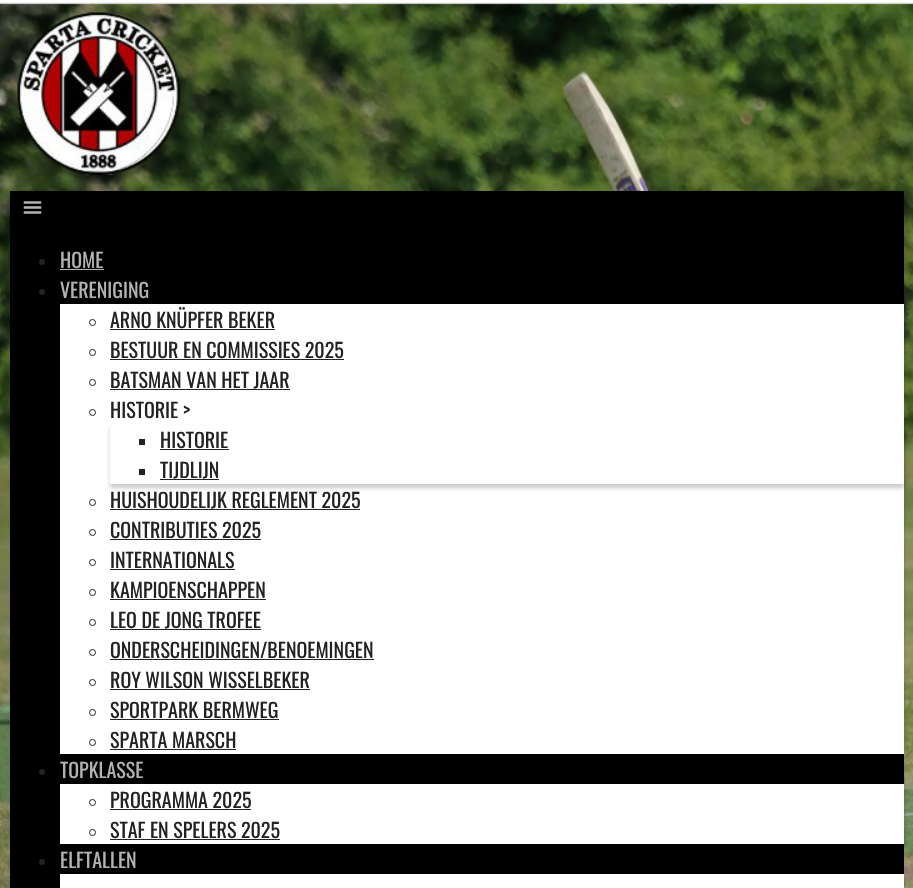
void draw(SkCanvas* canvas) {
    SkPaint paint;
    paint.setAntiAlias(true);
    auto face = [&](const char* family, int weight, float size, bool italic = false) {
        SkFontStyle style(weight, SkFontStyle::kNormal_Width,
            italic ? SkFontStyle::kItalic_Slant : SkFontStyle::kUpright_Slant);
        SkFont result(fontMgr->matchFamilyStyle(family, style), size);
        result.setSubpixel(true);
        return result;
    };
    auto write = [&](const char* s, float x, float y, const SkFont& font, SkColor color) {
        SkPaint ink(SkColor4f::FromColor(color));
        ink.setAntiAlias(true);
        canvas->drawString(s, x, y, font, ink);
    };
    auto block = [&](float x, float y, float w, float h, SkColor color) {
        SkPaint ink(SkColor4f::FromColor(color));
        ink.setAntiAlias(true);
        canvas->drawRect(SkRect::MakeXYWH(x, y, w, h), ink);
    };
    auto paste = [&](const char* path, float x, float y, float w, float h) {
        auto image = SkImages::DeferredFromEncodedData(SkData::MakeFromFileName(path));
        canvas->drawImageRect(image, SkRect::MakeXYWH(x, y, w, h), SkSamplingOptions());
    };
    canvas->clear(SK_ColorWHITE);
    paste("pic1.png", 0, 2, 913, 886);
    paste("pic2.png", 17, 12, 168, 172);
    block(10, 191, 894, 697, SK_ColorBLACK);
    paste("pic3.png", 23, 201, 19, 13);
    paint.setColor(SkColorSetRGB(34, 34, 34));
    canvas->drawCircle(42, 262, 3, paint);
    auto kFont1 = face("Oswald", 400, 20);
    write("HOME", 60, 268, kFont1, SkColorSetRGB(179, 179, 179));
    block(60, 269, 44, 1, SkColorSetRGB(179, 179, 179));
    canvas->drawCircle(42, 292, 3, paint);
    write("VERENIGING", 60, 298, kFont1, SkColorSetRGB(179, 179, 179));
    paint.setColor(SkColorSetARGB(51, 0, 0, 0));
    paint.setMaskFilter(SkMaskFilter::MakeBlur(kNormal_SkBlurStyle, 2));
    canvas->drawRect(SkRect::MakeXYWH(60, 308, 844, 450), paint);
    paint.setMaskFilter(nullptr);
    block(60, 304, 844, 450, SK_ColorWHITE);
    paint.setStyle(SkPaint::kStroke_Style);
    paint.setStrokeWidth(1);
    paint.setColor(SkColorSetRGB(34, 34, 34));
    canvas->drawCircle(92.5f, 322.5f, 3, paint);
    write("ARNO KNÜPFER BEKER", 110, 328, kFont1, SkColorSetRGB(34, 34, 34));
    block(110, 329, 165, 1, SkColorSetRGB(34, 34, 34));
    canvas->drawCircle(92.5f, 352.5f, 3, paint);
    write("BESTUUR EN COMMISSIES 2025", 110, 358, kFont1, SkColorSetRGB(34, 34, 34));
    block(110, 359, 234, 1, SkColorSetRGB(34, 34, 34));
    canvas->drawCircle(92.5f, 382.5f, 3, paint);
    write("BATSMAN VAN HET JAAR", 110, 388, kFont1, SkColorSetRGB(34, 34, 34));
    block(110, 389, 180, 1, SkColorSetRGB(34, 34, 34));
    canvas->drawCircle(92.5f, 412.5f, 3, paint);
    write("HISTORIE >", 110, 418, kFont1, SkColorSetRGB(34, 34, 34));
    paint.setStyle(SkPaint::kFill_Style);
    paint.setColor(SkColorSetARGB(51, 0, 0, 0));
    paint.setMaskFilter(SkMaskFilter::MakeBlur(kNormal_SkBlurStyle, 2));
    canvas->drawRect(SkRect::MakeXYWH(110, 428, 794, 60), paint);
    paint.setMaskFilter(nullptr);
    block(110, 425, 794, 59, SK_ColorWHITE);
    block(139, 439, 6, 6, SkColorSetRGB(34, 34, 34));
    write("HISTORIE", 160, 448, kFont1, SkColorSetRGB(34, 34, 34));
    block(160, 449, 69, 1, SkColorSetRGB(34, 34, 34));
    block(139, 469, 6, 6, SkColorSetRGB(34, 34, 34));
    write("TIJDLIJN", 160, 478, kFont1, SkColorSetRGB(34, 34, 34));
    block(160, 479, 59, 1, SkColorSetRGB(34, 34, 34));
    paint.setStyle(SkPaint::kStroke_Style);
    paint.setColor(SkColorSetRGB(34, 34, 34));
    canvas->drawCircle(92.5f, 502.5f, 3, paint);
    write("HUISHOUDELIJK REGLEMENT 2025", 110, 508, kFont1, SkColorSetRGB(34, 34, 34));
    block(110, 509, 250, 1, SkColorSetRGB(34, 34, 34));
    canvas->drawCircle(92.5f, 532.5f, 3, paint);
    write("CONTRIBUTIES 2025", 110, 538, kFont1, SkColorSetRGB(34, 34, 34));
    block(110, 539, 151, 1, SkColorSetRGB(34, 34, 34));
    canvas->drawCircle(92.5f, 562.5f, 3, paint);
    write("INTERNATIONALS", 110, 568, kFont1, SkColorSetRGB(34, 34, 34));
    block(110, 569, 125, 1, SkColorSetRGB(34, 34, 34));
    canvas->drawCircle(92.5f, 592.5f, 3, paint);
    write("KAMPIOENSCHAPPEN", 110, 598, kFont1, SkColorSetRGB(34, 34, 34));
    block(110, 599, 156, 1, SkColorSetRGB(34, 34, 34));
    canvas->drawCircle(92.5f, 622.5f, 3, paint);
    write("LEO DE JONG TROFEE", 110, 628, kFont1, SkColorSetRGB(34, 34, 34));
    block(110, 629, 151, 1, SkColorSetRGB(34, 34, 34));
    canvas->drawCircle(92.5f, 652.5f, 3, paint);
    write("ONDERSCHEIDINGEN/BENOEMINGEN", 110, 658, kFont1, SkColorSetRGB(34, 34, 34));
    block(110, 659, 264, 1, SkColorSetRGB(34, 34, 34));
    canvas->drawCircle(92.5f, 682.5f, 3, paint);
    write("ROY WILSON WISSELBEKER", 110, 688, kFont1, SkColorSetRGB(34, 34, 34));
    block(110, 689, 200, 1, SkColorSetRGB(34, 34, 34));
    canvas->drawCircle(92.5f, 712.5f, 3, paint);
    write("SPORTPARK BERMWEG", 110, 718, kFont1, SkColorSetRGB(34, 34, 34));
    block(110, 719, 169, 1, SkColorSetRGB(34, 34, 34));
    canvas->drawCircle(92.5f, 742.5f, 3, paint);
    write("SPARTA MARSCH", 110, 748, kFont1, SkColorSetRGB(34, 34, 34));
    block(110, 749, 126, 1, SkColorSetRGB(34, 34, 34));
    paint.setStyle(SkPaint::kFill_Style);
    canvas->drawCircle(42, 772, 3, paint);
    write("TOPKLASSE", 60, 778, kFont1, SkColorSetRGB(179, 179, 179));
    paint.setColor(SkColorSetARGB(51, 0, 0, 0));
    paint.setMaskFilter(SkMaskFilter::MakeBlur(kNormal_SkBlurStyle, 2));
    canvas->drawRect(SkRect::MakeXYWH(60, 788, 844, 60), paint);
    paint.setMaskFilter(nullptr);
    block(60, 784, 844, 60, SK_ColorWHITE);
    paint.setStyle(SkPaint::kStroke_Style);
    paint.setColor(SkColorSetRGB(34, 34, 34));
    canvas->drawCircle(92.5f, 802.5f, 3, paint);
    write("PROGRAMMA 2025", 110, 808, kFont1, SkColorSetRGB(34, 34, 34));
    block(110, 809, 141, 1, SkColorSetRGB(34, 34, 34));
    canvas->drawCircle(92.5f, 832.5f, 3, paint);
    write("STAF EN SPELERS 2025", 110, 838, kFont1, SkColorSetRGB(34, 34, 34));
    block(110, 839, 170, 1, SkColorSetRGB(34, 34, 34));
    paint.setStyle(SkPaint::kFill_Style);
    canvas->drawCircle(42, 862, 3, paint);
    write("ELFTALLEN", 60, 868, kFont1, SkColorSetRGB(179, 179, 179));
    paint.setColor(SkColorSetARGB(51, 0, 0, 0));
    paint.setMaskFilter(SkMaskFilter::MakeBlur(kNormal_SkBlurStyle, 2));
    canvas->drawRect(SkRect::MakeXYWH(60, 878, 844, 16), paint);
    paint.setMaskFilter(nullptr);
    block(60, 874, 844, 14, SK_ColorWHITE);
}
